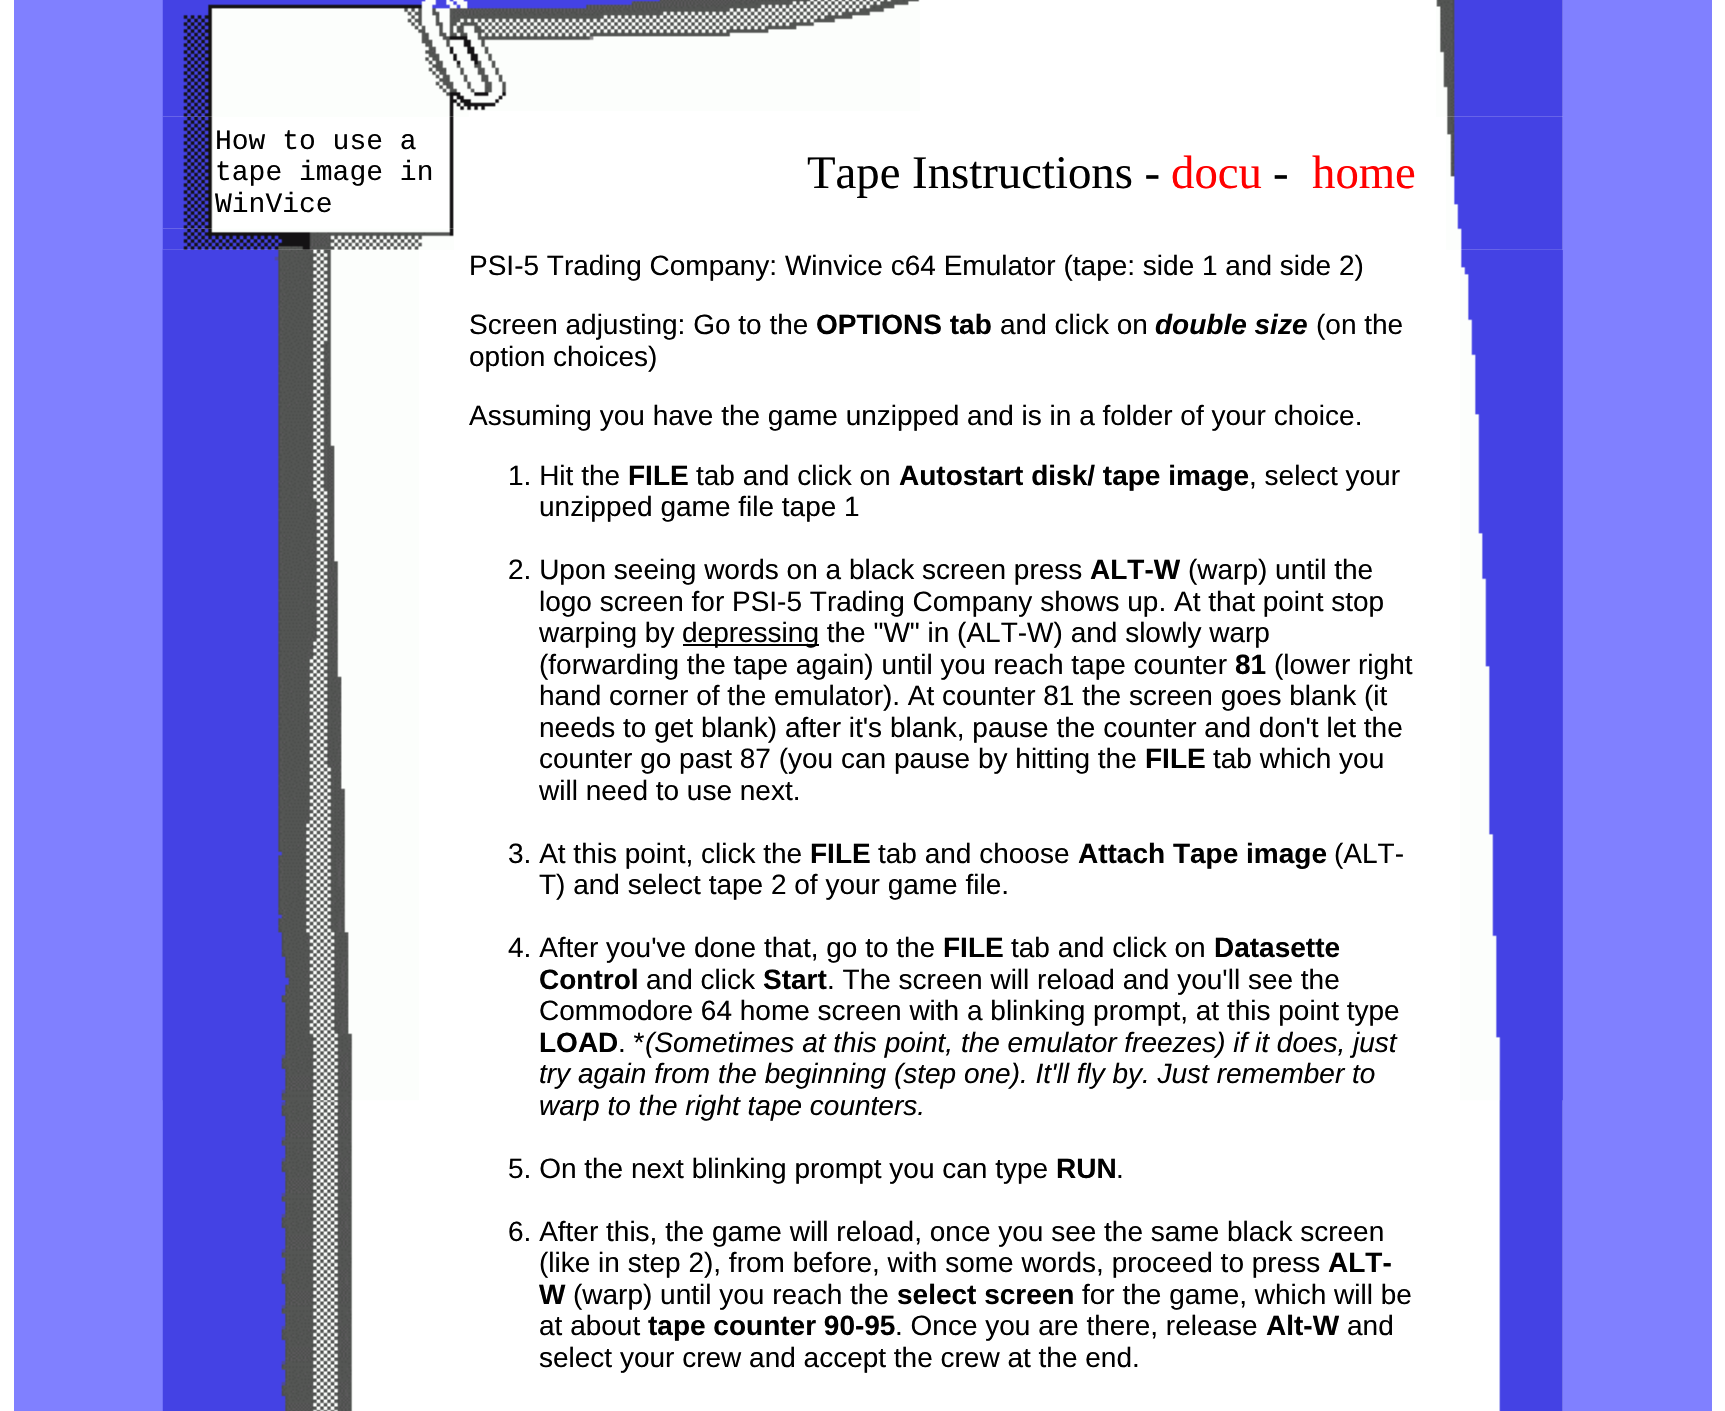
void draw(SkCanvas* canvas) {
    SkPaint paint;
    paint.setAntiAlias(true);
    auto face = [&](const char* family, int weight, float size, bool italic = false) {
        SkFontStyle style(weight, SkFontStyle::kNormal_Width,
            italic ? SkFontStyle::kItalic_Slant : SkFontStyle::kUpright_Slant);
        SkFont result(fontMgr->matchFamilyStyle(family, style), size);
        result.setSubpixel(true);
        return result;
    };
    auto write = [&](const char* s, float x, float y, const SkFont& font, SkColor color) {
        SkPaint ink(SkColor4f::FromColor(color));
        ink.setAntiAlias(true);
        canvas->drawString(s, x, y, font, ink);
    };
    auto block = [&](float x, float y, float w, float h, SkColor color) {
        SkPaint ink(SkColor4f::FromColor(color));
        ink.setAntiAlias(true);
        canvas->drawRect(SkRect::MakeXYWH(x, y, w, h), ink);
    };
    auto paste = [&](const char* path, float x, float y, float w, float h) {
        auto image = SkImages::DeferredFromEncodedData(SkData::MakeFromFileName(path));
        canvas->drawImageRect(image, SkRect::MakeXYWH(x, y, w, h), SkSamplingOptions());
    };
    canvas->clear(SK_ColorWHITE);
    block(14, 0, 1698, 1411, SkColorSetRGB(128, 128, 255));
    block(163, 0, 1400, 1411, SK_ColorWHITE);
    paste("pic1.png", 162, 0, 307, 117);
    paste("pic2.png", 469, 0, 451, 111);
    paste("pic3.png", 1436, 0, 127, 117);
    paste("pic4.png", 162, 116, 51, 113);
    auto kFont1 = face("Liberation Mono", 400, 28);
    write("How to use a", 215, 149, kFont1, SK_ColorBLACK);
    write("tape image in", 215, 180, kFont1, SK_ColorBLACK);
    write("WinVice", 215, 212, kFont1, SK_ColorBLACK);
    paste("pic5.png", 449, 116, 5, 113);
    auto kFont2 = face("Liberation Serif", 400, 46.75f);
    write("Tape Instructions -", 807, 188, kFont2, SK_ColorBLACK);
    write("docu", 1171, 188, kFont2, SkColorSetRGB(255, 0, 0));
    write("-", 1273, 188, kFont2, SK_ColorBLACK);
    write("home", 1312, 188, kFont2, SkColorSetRGB(255, 0, 0));
    paste("pic10.png", 1499, 249, 64, 1162);
    paste("pic6.png", 1446, 116, 117, 134);
    paste("pic8.png", 162, 249, 191, 1162);
    paste("pic7.png", 162, 228, 292, 22);
    paste("pic9.png", 162, 249, 257, 852);
    auto kFont3 = face("Liberation Sans", 400, 28);
    write("PSI-5 Trading Company: Winvice c64 Emulator (tape: side 1 and side 2)", 469, 275, kFont3, SK_ColorBLACK);
    write("Screen adjusting: Go to the", 469, 334, kFont3, SK_ColorBLACK);
    auto kFont4 = face("Liberation Sans", 700, 28);
    write("OPTIONS tab", 816, 334, kFont4, SK_ColorBLACK);
    write("and click on", 1000, 334, kFont3, SK_ColorBLACK);
    auto kFont5 = face("Liberation Sans", 700, 28, true);
    write("double size", 1155, 334, kFont5, SK_ColorBLACK);
    write("(on the", 1316, 334, kFont3, SK_ColorBLACK);
    write("option choices)", 469, 366, kFont3, SK_ColorBLACK);
    write("Assuming you have the game unzipped and is in a folder of your choice.", 469, 425, kFont3, SK_ColorBLACK);
    write("1. Hit the", 508, 485, kFont3, SK_ColorBLACK);
    write("FILE", 628, 485, kFont4, SK_ColorBLACK);
    write("tab and click on", 696, 485, kFont3, SK_ColorBLACK);
    write("Autostart disk/ tape image", 899, 485, kFont4, SK_ColorBLACK);
    write(", select your", 1249, 485, kFont3, SK_ColorBLACK);
    write("unzipped game file tape 1", 539, 516, kFont3, SK_ColorBLACK);
    write("2. Upon seeing words on a black screen press", 508, 579, kFont3, SK_ColorBLACK);
    write("ALT-W", 1090, 579, kFont4, SK_ColorBLACK);
    write("(warp) until the", 1188, 579, kFont3, SK_ColorBLACK);
    write("logo screen for PSI-5 Trading Company shows up. At that point stop", 539, 611, kFont3, SK_ColorBLACK);
    write("warping by", 539, 642, kFont3, SK_ColorBLACK);
    block(683, 644, 136, 2, SK_ColorBLACK);
    write("depressing the \"W\" in (ALT-W) and slowly warp", 682, 642, kFont3, SK_ColorBLACK);
    write("(forwarding the tape again) until you reach tape counter", 539, 674, kFont3, SK_ColorBLACK);
    write("81", 1235, 674, kFont4, SK_ColorBLACK);
    write("(lower right", 1274, 674, kFont3, SK_ColorBLACK);
    write("hand corner of the emulator). At counter 81 the screen goes blank (it", 539, 705, kFont3, SK_ColorBLACK);
    write("needs to get blank) after it's blank, pause the counter and don't let the", 539, 737, kFont3, SK_ColorBLACK);
    write("counter go past 87 (you can pause by hitting the", 539, 768, kFont3, SK_ColorBLACK);
    write("FILE", 1145, 768, kFont4, SK_ColorBLACK);
    write("tab which you", 1213, 768, kFont3, SK_ColorBLACK);
    write("will need to use next.", 539, 800, kFont3, SK_ColorBLACK);
    write("3. At this point, click the", 508, 863, kFont3, SK_ColorBLACK);
    write("FILE", 810, 863, kFont4, SK_ColorBLACK);
    write("tab and choose", 878, 863, kFont3, SK_ColorBLACK);
    write("Attach Tape image", 1078, 863, kFont4, SK_ColorBLACK);
    write("(ALT-", 1334, 863, kFont3, SK_ColorBLACK);
    write("T) and select tape 2 of your game file.", 539, 894, kFont3, SK_ColorBLACK);
    write("4. After you've done that, go to the", 508, 957, kFont3, SK_ColorBLACK);
    write("FILE", 943, 957, kFont4, SK_ColorBLACK);
    write("tab and click on", 1011, 957, kFont3, SK_ColorBLACK);
    write("Datasette", 1214, 957, kFont4, SK_ColorBLACK);
    write("Control", 539, 989, kFont4, SK_ColorBLACK);
    write("and click", 646, 989, kFont3, SK_ColorBLACK);
    write("Start", 763, 989, kFont4, SK_ColorBLACK);
    write(". The screen will reload and you'll see the", 827, 989, kFont3, SK_ColorBLACK);
    write("Commodore 64 home screen with a blinking prompt, at this point type", 539, 1020, kFont3, SK_ColorBLACK);
    write("LOAD", 539, 1052, kFont4, SK_ColorBLACK);
    write(". *", 618, 1052, kFont3, SK_ColorBLACK);
    auto kFont6 = face("Liberation Sans", 400, 28, true);
    write("(Sometimes at this point, the emulator freezes) if it does, just", 645, 1052, kFont6, SK_ColorBLACK);
    write("try again from the beginning (step one). It'll fly by. Just remember to", 539, 1083, kFont6, SK_ColorBLACK);
    write("warp to the right tape counters.", 539, 1115, kFont6, SK_ColorBLACK);
    write("5. On the next blinking prompt you can type", 508, 1178, kFont3, SK_ColorBLACK);
    write("RUN", 1056, 1178, kFont4, SK_ColorBLACK);
    write(".", 1116, 1178, kFont3, SK_ColorBLACK);
    write("6. After this, the game will reload, once you see the same black screen", 508, 1241, kFont3, SK_ColorBLACK);
    write("(like in step 2), from before, with some words, proceed to press", 539, 1272, kFont3, SK_ColorBLACK);
    write("ALT-", 1328, 1272, kFont4, SK_ColorBLACK);
    write("W", 539, 1304, kFont4, SK_ColorBLACK);
    write("(warp) until you reach the", 573, 1304, kFont3, SK_ColorBLACK);
    write("select screen", 897, 1304, kFont4, SK_ColorBLACK);
    write("for the game, which will be", 1082, 1304, kFont3, SK_ColorBLACK);
    write("at about", 539, 1335, kFont3, SK_ColorBLACK);
    write("tape counter 90-95", 648, 1335, kFont4, SK_ColorBLACK);
    write(". Once you are there, release", 895, 1335, kFont3, SK_ColorBLACK);
    write("Alt-W", 1266, 1335, kFont4, SK_ColorBLACK);
    write("and", 1347, 1335, kFont3, SK_ColorBLACK);
    write("select your crew and accept the crew at the end.", 539, 1367, kFont3, SK_ColorBLACK);
    paste("pic11.png", 1460, 249, 103, 852);
}
